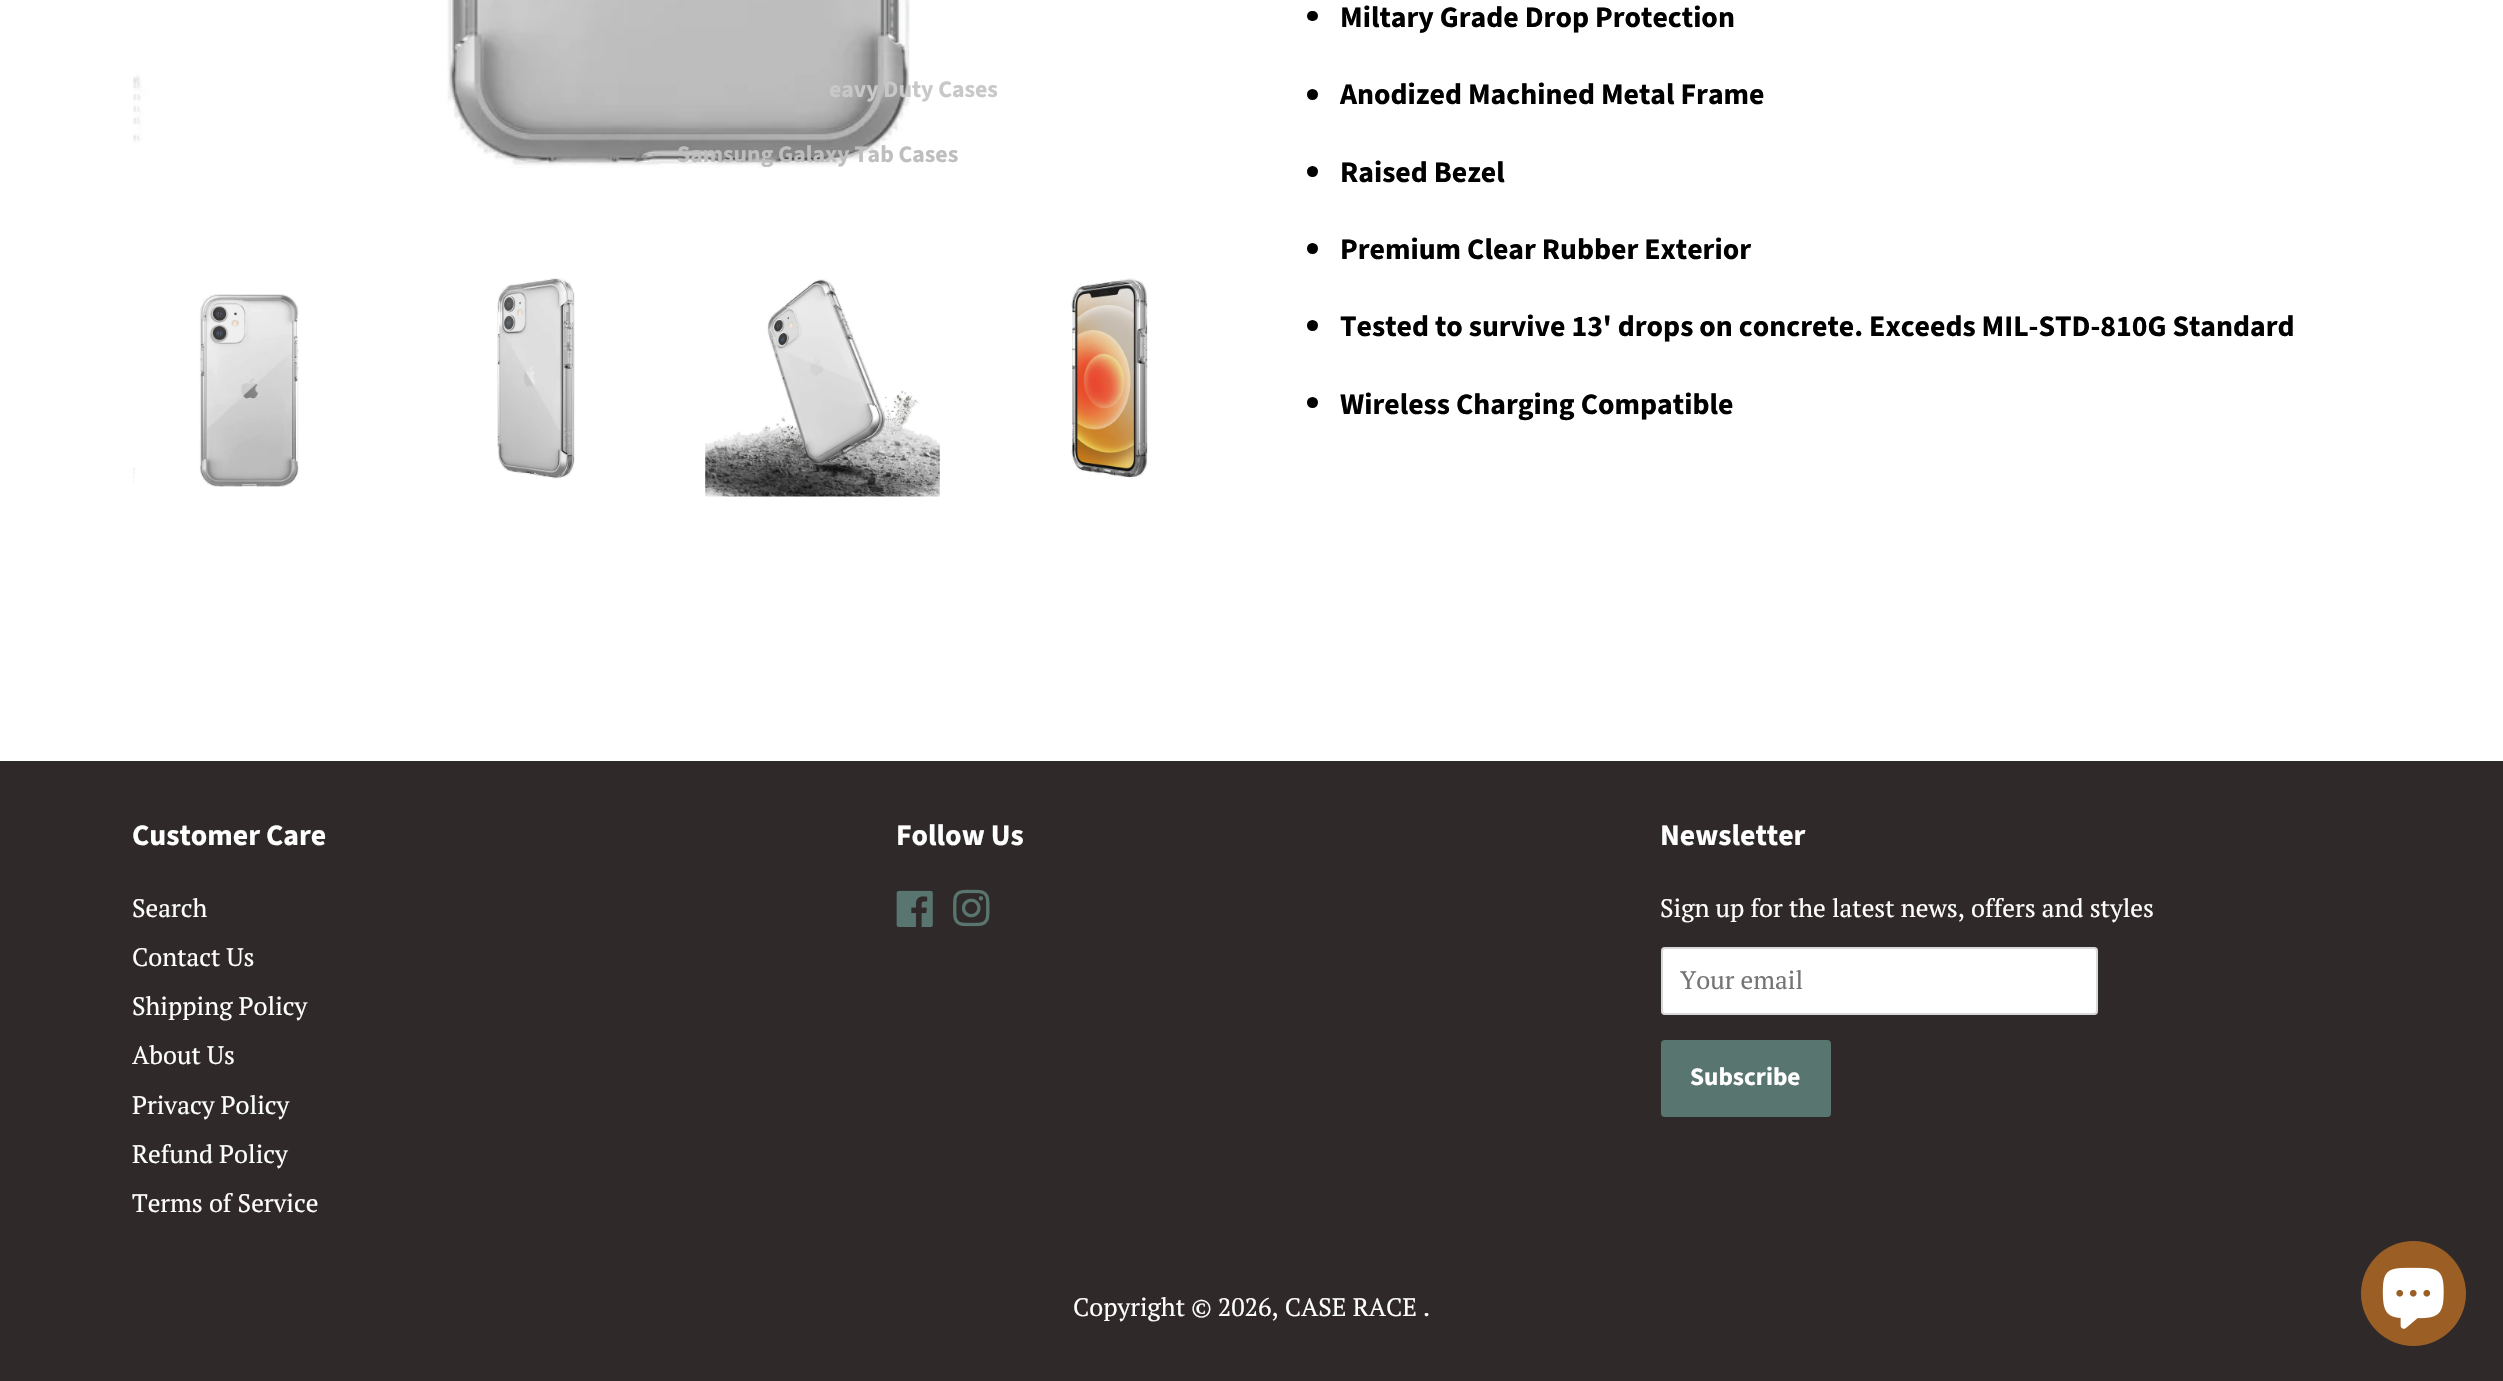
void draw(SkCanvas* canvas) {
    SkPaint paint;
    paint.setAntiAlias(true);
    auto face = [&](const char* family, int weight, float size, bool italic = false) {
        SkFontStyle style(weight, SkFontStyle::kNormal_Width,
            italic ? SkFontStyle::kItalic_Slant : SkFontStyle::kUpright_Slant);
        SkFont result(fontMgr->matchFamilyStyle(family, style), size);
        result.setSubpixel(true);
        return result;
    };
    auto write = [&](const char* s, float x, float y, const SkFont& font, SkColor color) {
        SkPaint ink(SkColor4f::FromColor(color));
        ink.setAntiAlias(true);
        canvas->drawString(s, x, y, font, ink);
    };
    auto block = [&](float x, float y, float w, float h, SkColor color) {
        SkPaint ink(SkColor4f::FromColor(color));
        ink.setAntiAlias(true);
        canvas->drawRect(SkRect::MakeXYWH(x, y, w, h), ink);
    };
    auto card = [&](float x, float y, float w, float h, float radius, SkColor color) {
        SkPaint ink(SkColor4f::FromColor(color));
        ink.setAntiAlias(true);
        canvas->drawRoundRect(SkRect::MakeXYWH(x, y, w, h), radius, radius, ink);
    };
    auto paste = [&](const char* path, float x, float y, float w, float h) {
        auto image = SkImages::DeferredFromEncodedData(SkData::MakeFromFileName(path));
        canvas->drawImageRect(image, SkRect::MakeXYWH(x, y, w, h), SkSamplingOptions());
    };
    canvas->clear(SK_ColorWHITE);
    paste("pic1.png", 133, 0, 777, 168);
    auto kFont1 = face("Source Sans Pro", 700, 23.75f);
    write("eavy Duty Cases", 829, 97, kFont1, SkColorSetRGB(200, 200, 200));
    write("Samsung Galaxy Tab Cases", 677, 162, kFont1, SkColorSetRGB(190, 190, 190));
    paste("pic2.png", 133, 294, 166, 193);
    paste("pic3.png", 497, 278, 78, 201);
    paste("pic4.png", 705, 279, 235, 218);
    paste("pic5.png", 1071, 278, 77, 200);
    card(1307, 11, 11, 10, 5, SK_ColorBLACK);
    auto kFont2 = face("Source Sans Pro", 700, 29.75f);
    write("Miltary Grade Drop Protection", 1340, 27, kFont2, SK_ColorBLACK);
    paint.setColor(SK_ColorBLACK);
    canvas->drawCircle(1312.5f, 94.5f, 5.5f, paint);
    write("Anodized Machined Metal Frame", 1340, 104, kFont2, SK_ColorBLACK);
    canvas->drawCircle(1312.5f, 171.5f, 5.5f, paint);
    write("Raised Bezel", 1340, 182, kFont2, SK_ColorBLACK);
    canvas->drawCircle(1312.5f, 248.5f, 5.5f, paint);
    write("Premium Clear Rubber Exterior", 1340, 259, kFont2, SK_ColorBLACK);
    canvas->drawCircle(1312.5f, 325.5f, 5.5f, paint);
    write("Tested to survive 13' drops on concrete. Exceeds MIL-STD-810G Standard", 1340, 336, kFont2, SK_ColorBLACK);
    canvas->drawCircle(1312.5f, 402.5f, 5.5f, paint);
    write("Wireless Charging Compatible", 1340, 414, kFont2, SK_ColorBLACK);
    block(0, 761, 2503, 620, SkColorSetRGB(48, 41, 41));
    write("Customer Care", 132, 845, kFont2, SK_ColorWHITE);
    auto kFont3 = face("PT Serif", 400, 25.25f);
    write("Search", 132, 917, kFont3, SK_ColorWHITE);
    write("Contact Us", 132, 966, kFont3, SK_ColorWHITE);
    write("Shipping Policy", 132, 1015, kFont3, SK_ColorWHITE);
    write("About Us", 132, 1064, kFont3, SK_ColorWHITE);
    write("Privacy Policy", 132, 1114, kFont3, SK_ColorWHITE);
    write("Refund Policy", 132, 1163, kFont3, SK_ColorWHITE);
    write("Terms of Service", 132, 1212, kFont3, SK_ColorWHITE);
    write("Follow Us", 896, 845, kFont2, SK_ColorWHITE);
    paste("pic6.png", 896, 890, 37, 37);
    paste("pic7.png", 953, 889, 37, 38);
    write("Newsletter", 1660, 845, kFont2, SK_ColorWHITE);
    write("Sign up for the latest news, offers and styles", 1660, 917, kFont3, SK_ColorWHITE);
    card(1661, 947, 437, 68, 4, SK_ColorWHITE);
    paint.setStyle(SkPaint::kStroke_Style);
    paint.setStrokeWidth(2);
    paint.setColor(SkColorSetARGB(38, 0, 0, 0));
    canvas->drawRoundRect(SkRect::MakeXYWH(1662, 948, 435, 66), 3, 3, paint);
    write("Your email", 1680, 989, kFont3, SkColorSetRGB(117, 117, 117));
    card(1661, 1040, 170, 77, 4, SkColorSetRGB(89, 117, 111));
    auto kFont4 = face("Source Sans Pro", 700, 25.25f);
    write("Subscribe", 1690, 1085, kFont4, SK_ColorWHITE);
    write("Copyright © 2026, CASE RACE .", 1073, 1316, kFont3, SK_ColorWHITE);
    paint.setStyle(SkPaint::kFill_Style);
    paint.setColor(SkColorSetRGB(155, 95, 37));
    canvas->drawCircle(2413.5f, 1293.5f, 52.5f, paint);
    paste("pic8.png", 2382, 1267, 62, 62);
}
